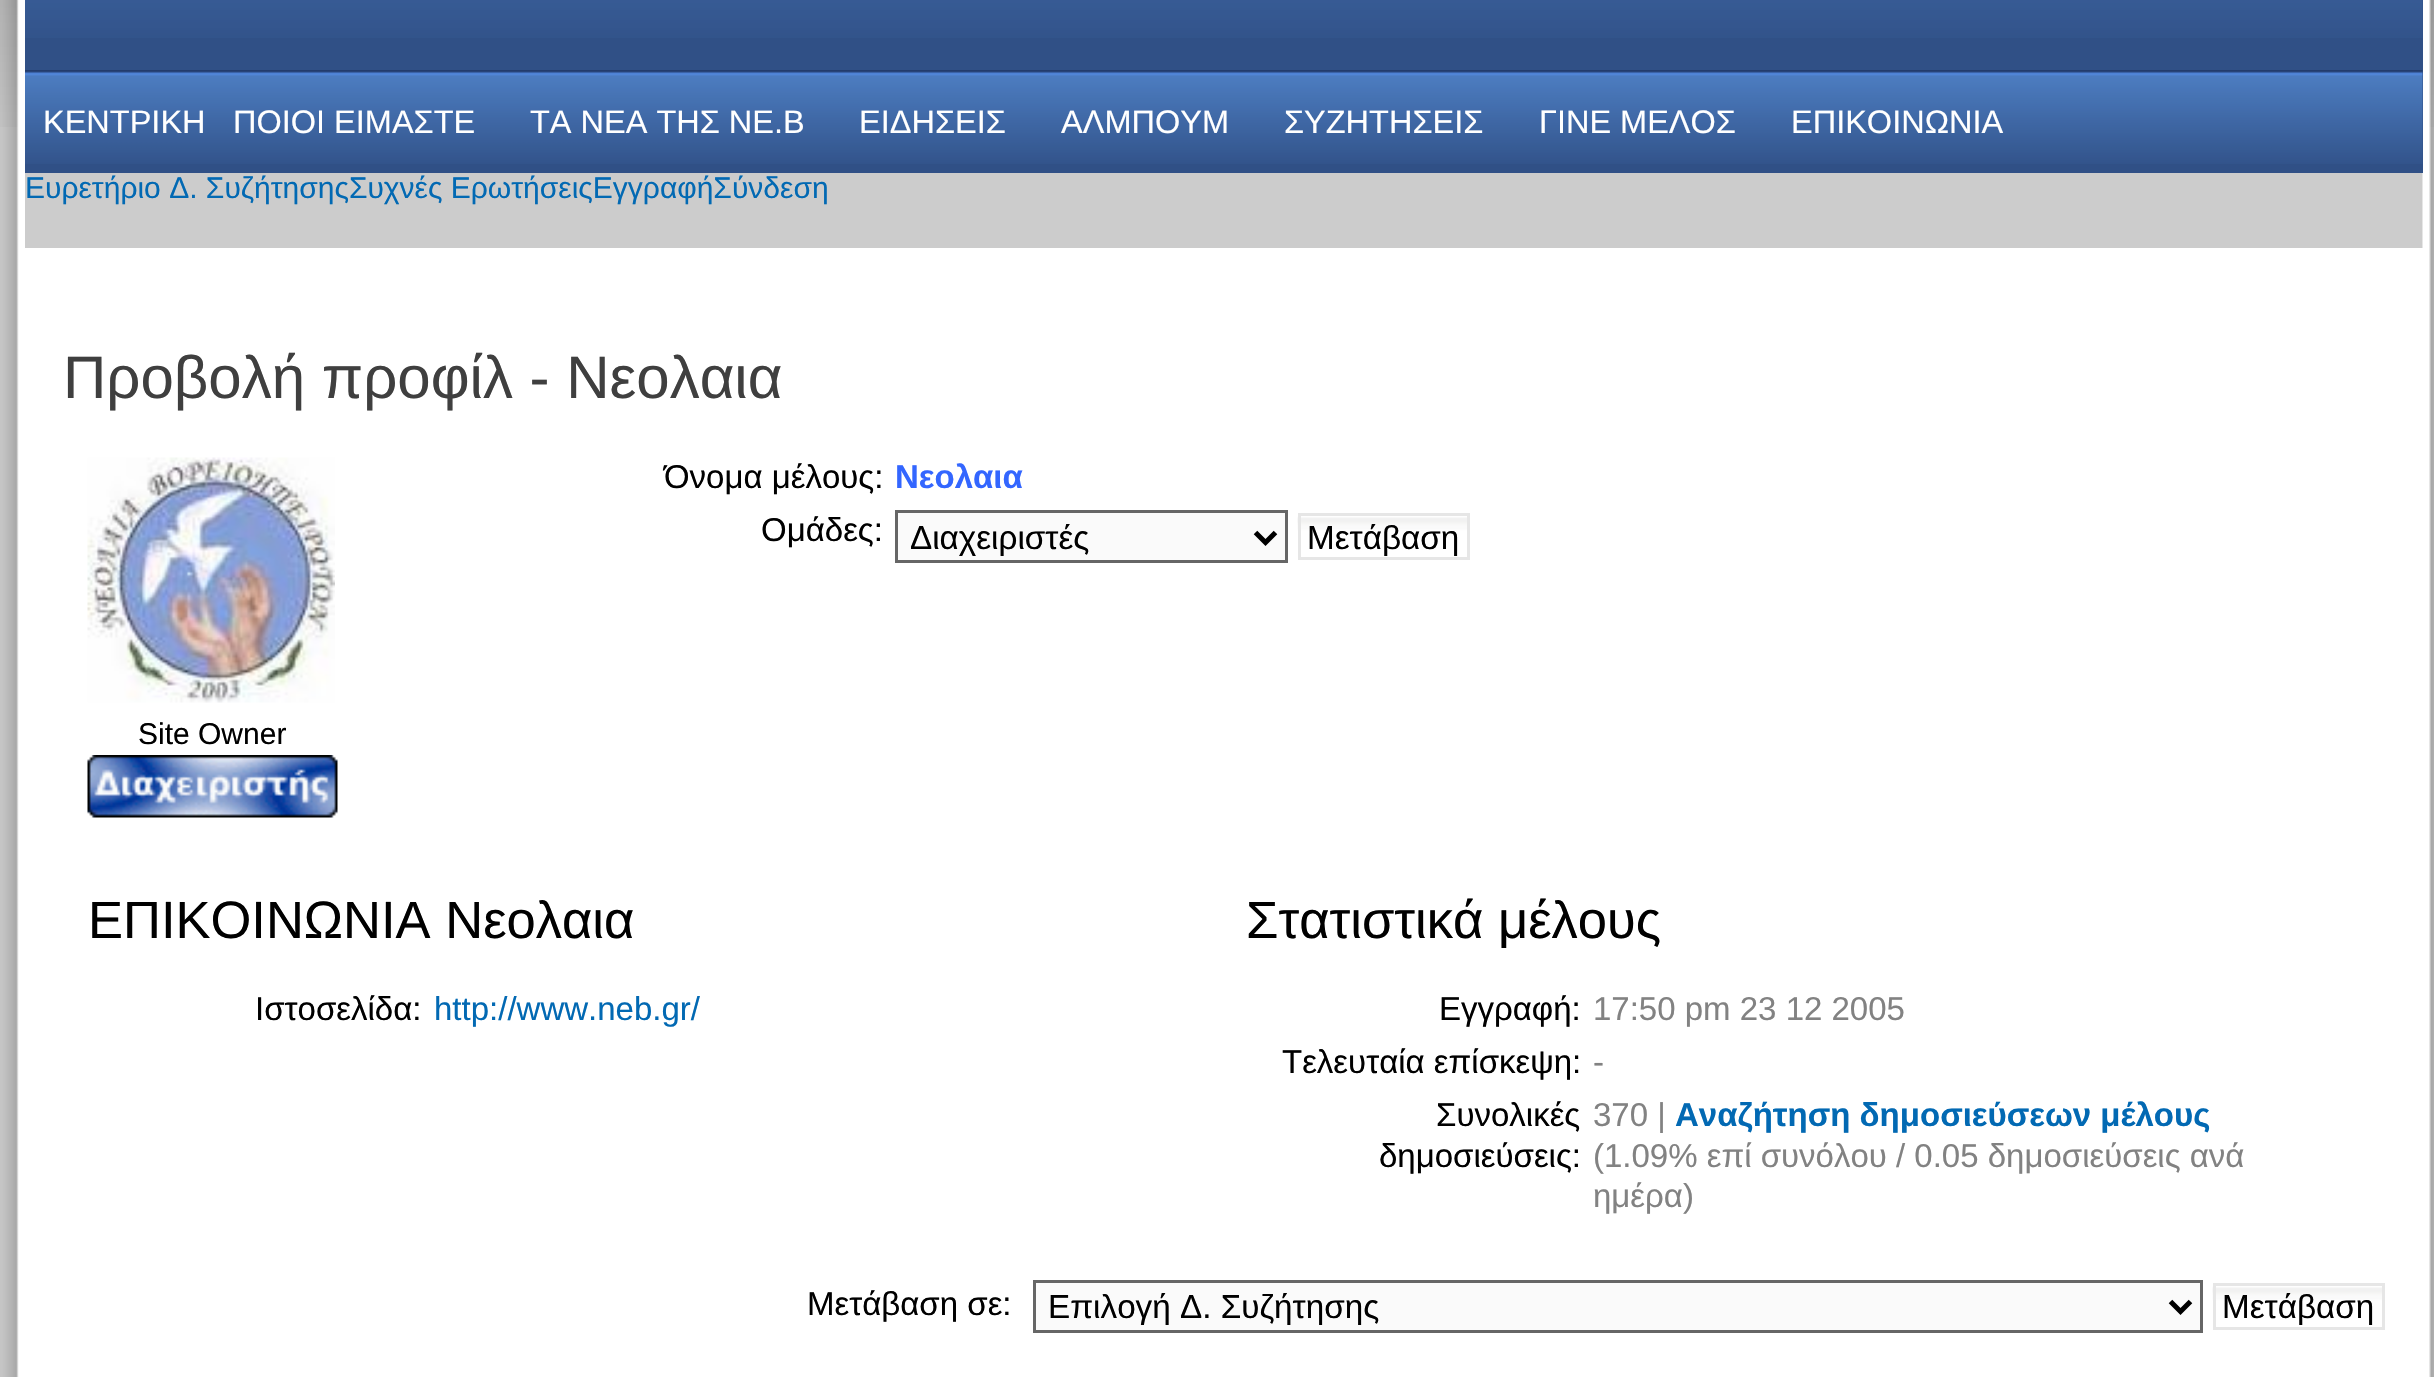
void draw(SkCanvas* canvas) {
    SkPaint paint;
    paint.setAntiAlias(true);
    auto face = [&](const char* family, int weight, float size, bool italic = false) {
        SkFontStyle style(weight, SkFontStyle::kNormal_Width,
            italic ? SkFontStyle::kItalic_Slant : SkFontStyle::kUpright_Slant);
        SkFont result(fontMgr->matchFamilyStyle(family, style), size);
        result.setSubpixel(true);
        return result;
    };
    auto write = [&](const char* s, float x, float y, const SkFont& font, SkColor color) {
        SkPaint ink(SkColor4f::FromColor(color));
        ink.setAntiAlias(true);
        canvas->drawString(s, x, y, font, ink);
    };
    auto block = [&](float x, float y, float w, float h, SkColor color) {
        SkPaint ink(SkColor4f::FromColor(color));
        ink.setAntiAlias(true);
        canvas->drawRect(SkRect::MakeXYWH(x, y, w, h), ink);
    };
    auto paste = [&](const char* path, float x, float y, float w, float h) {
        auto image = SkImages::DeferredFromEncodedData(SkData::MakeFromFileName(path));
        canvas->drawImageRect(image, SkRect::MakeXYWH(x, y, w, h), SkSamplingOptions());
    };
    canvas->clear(SkColorSetRGB(204, 204, 204));
    paste("pic1.png", 0, 0, 2434, 127);
    paste("pic2.png", 0, 0, 25, 1377);
    paste("pic3.png", 2422, 0, 12, 1377);
    block(25, 0, 2398, 173, SkColorSetRGB(48, 80, 134));
    paste("pic4.png", 25, 0, 2398, 38);
    paste("pic5.png", 25, 70, 2398, 94);
    auto kFont1 = face("Liberation Sans", 400, 32.5f);
    write("ΚΕΝΤΡΙΚΗ", 43, 133, kFont1, SK_ColorWHITE);
    write("ΠΟΙΟΙ ΕΙΜΑΣΤΕ", 233, 133, kFont1, SK_ColorWHITE);
    write("ΤΑ ΝΕΑ THΣ NE.B", 530, 133, kFont1, SK_ColorWHITE);
    write("ΕΙΔΗΣΕΙΣ", 859, 133, kFont1, SK_ColorWHITE);
    write("ΑΛΜΠΟΥΜ", 1061, 133, kFont1, SK_ColorWHITE);
    write("ΣΥΖΗΤΗΣΕΙΣ", 1284, 133, kFont1, SK_ColorWHITE);
    write("ΓΙΝΕ ΜΕΛΟΣ", 1539, 133, kFont1, SK_ColorWHITE);
    write("ΕΠΙΚΟΙΝΩΝΙΑ", 1791, 133, kFont1, SK_ColorWHITE);
    auto kFont2 = face("Liberation Sans", 400, 30);
    write("Ευρετήριο Δ. ΣυζήτησηςΣυχνές ΕρωτήσειςΕγγραφήΣύνδεση", 25, 198, kFont2, SkColorSetRGB(2, 105, 179));
    block(25, 248, 2398, 1129, SK_ColorWHITE);
    auto kFont3 = face("Liberation Sans", 400, 60);
    write("Προβολή προφίλ - Νεολαια", 63, 398, kFont3, SkColorSetRGB(63, 63, 63));
    auto kFont4 = face("Liberation Sans", 400, 33);
    write("Όνομα μέλους:", 664, 488, kFont4, SK_ColorBLACK);
    auto kFont5 = face("Liberation Sans", 700, 33);
    write("Νεολαια", 895, 488, kFont5, SkColorSetRGB(51, 102, 255));
    write("Ομάδες:", 761, 541, kFont4, SK_ColorBLACK);
    paint.setColor(SkColorSetRGB(250, 250, 250));
    canvas->drawRect(SkRect::MakeXYWH(896.5f, 511.5f, 390, 50), paint);
    paint.setStyle(SkPaint::kStroke_Style);
    paint.setStrokeWidth(3);
    paint.setColor(SkColorSetRGB(102, 102, 102));
    canvas->drawRect(SkRect::MakeXYWH(896.5f, 511.5f, 390, 50), paint);
    paint.setStrokeWidth(5);
    paint.setColor(SK_ColorBLACK);
    canvas->drawPath(SkPathBuilder().moveTo(1255.5f, 532.5f).lineTo(1265.5f, 542.5f).lineTo(1275.5f, 532.5f).detach(), paint);
    auto kFont6 = face("Liberation Sans", 400, 33.25f);
    write("Διαχειριστές", 910, 549, kFont6, SK_ColorBLACK);
    paste("pic6.png", 1297, 515, 170, 45);
    paint.setStrokeWidth(3);
    paint.setColor(SkColorSetRGB(230, 230, 230));
    canvas->drawRect(SkRect::MakeXYWH(1299.5f, 514.5f, 169, 44), paint);
    write("Μετάβαση", 1307, 549, kFont6, SK_ColorBLACK);
    paste("pic7.png", 87, 457, 248, 246);
    write("Site Owner", 138, 744, kFont2, SK_ColorBLACK);
    paste("pic8.png", 87, 755, 251, 63);
    auto kFont7 = face("Liberation Sans", 400, 52.5f);
    write("ΕΠΙΚΟΙΝΩΝΙΑ Νεολαια", 88, 938, kFont7, SK_ColorBLACK);
    write("Ιστοσελίδα:", 255, 1020, kFont4, SK_ColorBLACK);
    write("http://www.neb.gr/", 434, 1020, kFont4, SkColorSetRGB(2, 105, 179));
    write("Στατιστικά μέλους", 1246, 938, kFont7, SK_ColorBLACK);
    write("Εγγραφή:", 1439, 1020, kFont4, SK_ColorBLACK);
    write("17:50 pm 23 12 2005", 1593, 1020, kFont4, SkColorSetRGB(130, 130, 130));
    write("Τελευταία επίσκεψη:", 1282, 1073, kFont4, SK_ColorBLACK);
    write("-", 1593, 1073, kFont4, SkColorSetRGB(130, 130, 130));
    write("Συνολικές", 1436, 1126, kFont4, SK_ColorBLACK);
    write("δημοσιεύσεις:", 1379, 1167, kFont4, SK_ColorBLACK);
    write("370 |", 1593, 1126, kFont4, SkColorSetRGB(130, 130, 130));
    write("Αναζήτηση δημοσιεύσεων μέλους", 1675, 1126, kFont5, SkColorSetRGB(2, 105, 179));
    write("(1.09% επί συνόλου", 1593, 1167, kFont4, SkColorSetRGB(130, 130, 130));
    write("/ 0.05 δημοσιεύσεις ανά", 1896, 1167, kFont4, SkColorSetRGB(130, 130, 130));
    write("ημέρα)", 1593, 1207, kFont4, SkColorSetRGB(130, 130, 130));
    write("Μετάβαση σε:", 807, 1315, kFont4, SK_ColorBLACK);
    paint.setStyle(SkPaint::kFill_Style);
    paint.setColor(SkColorSetRGB(250, 250, 250));
    canvas->drawRect(SkRect::MakeXYWH(1034.5f, 1281.5f, 1167, 50), paint);
    paint.setStyle(SkPaint::kStroke_Style);
    paint.setColor(SkColorSetRGB(102, 102, 102));
    canvas->drawRect(SkRect::MakeXYWH(1034.5f, 1281.5f, 1167, 50), paint);
    paint.setStrokeWidth(5);
    paint.setColor(SK_ColorBLACK);
    canvas->drawPath(SkPathBuilder().moveTo(2170.5f, 1301.5f).lineTo(2180.5f, 1311.5f).lineTo(2190.5f, 1301.5f).detach(), paint);
    write("Επιλογή Δ. Συζήτησης", 1048, 1318, kFont6, SK_ColorBLACK);
    paste("pic9.png", 2212, 1285, 170, 45);
    paint.setStrokeWidth(3);
    paint.setColor(SkColorSetRGB(230, 230, 230));
    canvas->drawRect(SkRect::MakeXYWH(2214.5f, 1284.5f, 169, 44), paint);
    write("Μετάβαση", 2222, 1318, kFont6, SK_ColorBLACK);
}
